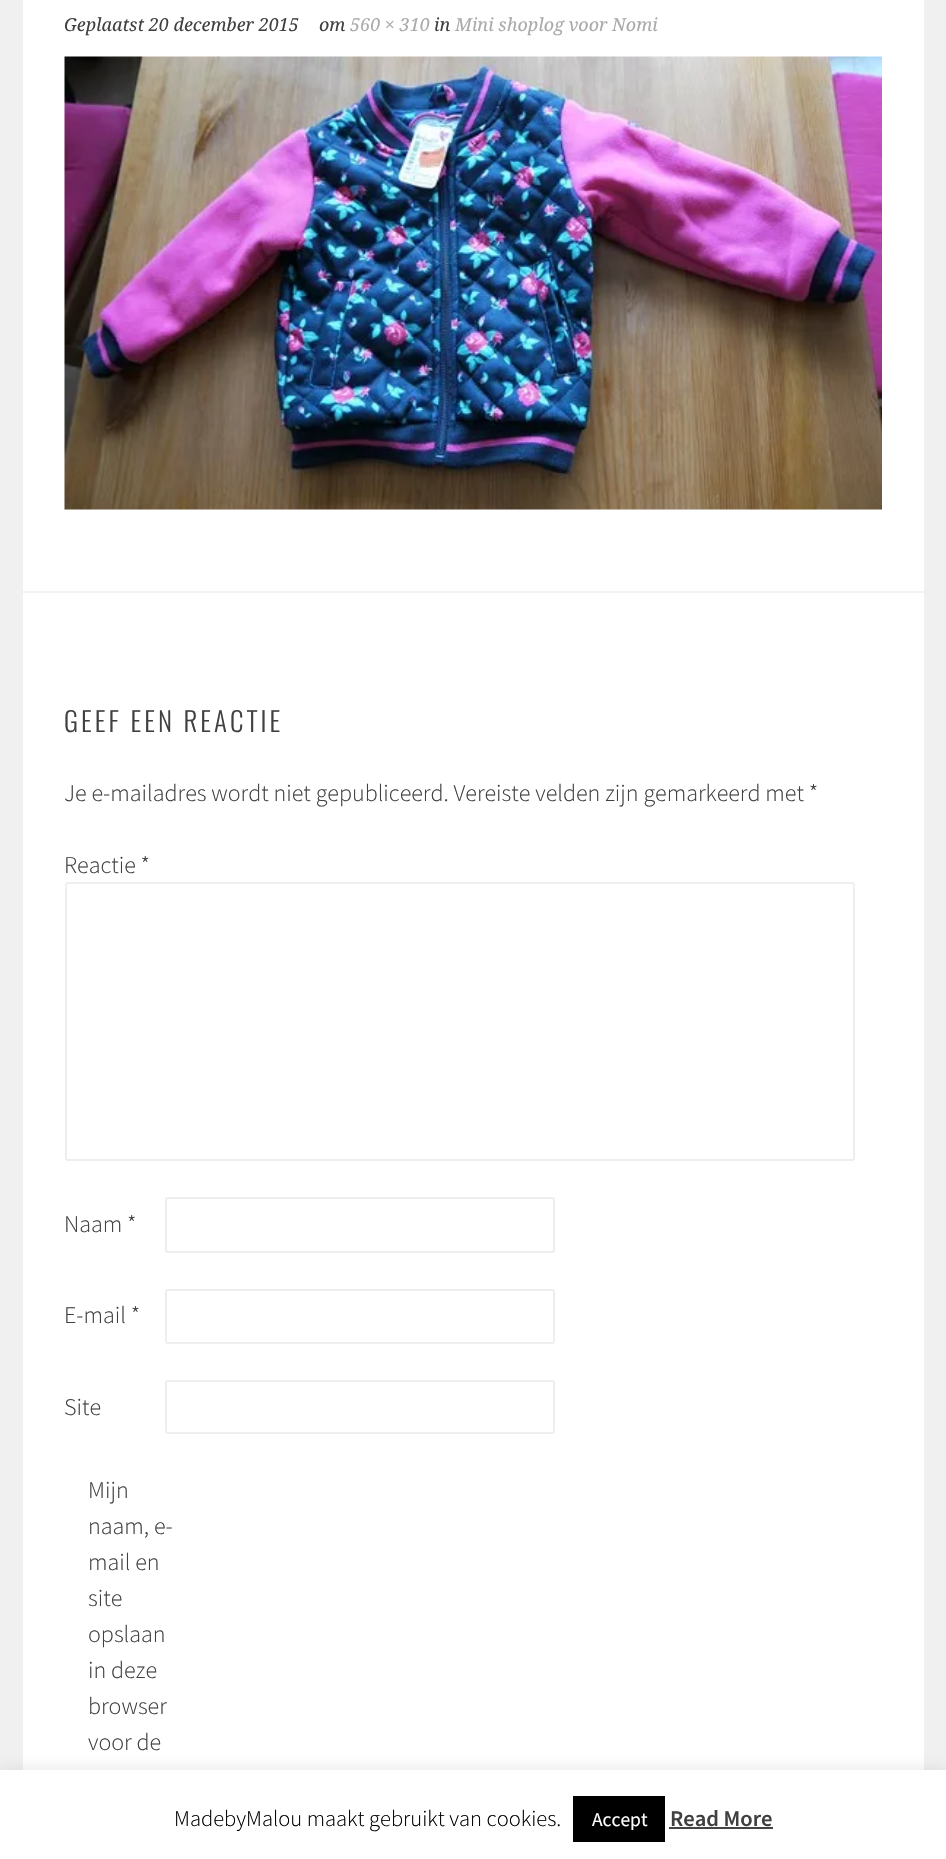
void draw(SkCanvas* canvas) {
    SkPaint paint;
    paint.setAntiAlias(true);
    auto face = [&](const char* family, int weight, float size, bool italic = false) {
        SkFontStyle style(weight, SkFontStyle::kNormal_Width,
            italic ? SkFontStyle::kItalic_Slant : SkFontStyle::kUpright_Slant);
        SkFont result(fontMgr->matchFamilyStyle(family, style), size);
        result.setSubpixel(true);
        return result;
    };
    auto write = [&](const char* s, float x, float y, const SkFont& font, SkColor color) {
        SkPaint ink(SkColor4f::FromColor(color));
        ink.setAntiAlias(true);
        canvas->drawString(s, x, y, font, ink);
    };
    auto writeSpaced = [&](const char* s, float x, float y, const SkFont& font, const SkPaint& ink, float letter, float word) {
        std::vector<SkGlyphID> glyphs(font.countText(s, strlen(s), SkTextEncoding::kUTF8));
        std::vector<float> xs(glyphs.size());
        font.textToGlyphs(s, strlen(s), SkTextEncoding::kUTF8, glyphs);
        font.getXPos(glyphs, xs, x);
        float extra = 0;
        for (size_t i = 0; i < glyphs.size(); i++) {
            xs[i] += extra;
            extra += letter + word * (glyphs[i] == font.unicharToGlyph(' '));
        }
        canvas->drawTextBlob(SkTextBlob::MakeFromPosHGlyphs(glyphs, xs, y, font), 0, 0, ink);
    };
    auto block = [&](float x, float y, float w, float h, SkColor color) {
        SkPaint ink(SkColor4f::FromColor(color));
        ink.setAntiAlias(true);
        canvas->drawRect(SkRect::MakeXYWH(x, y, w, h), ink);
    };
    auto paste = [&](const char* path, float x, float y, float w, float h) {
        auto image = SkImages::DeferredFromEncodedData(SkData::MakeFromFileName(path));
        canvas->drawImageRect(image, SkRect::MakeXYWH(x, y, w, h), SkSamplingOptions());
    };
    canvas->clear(SkColorSetRGB(240, 240, 240));
    block(23, 0, 901, 1770, SK_ColorWHITE);
    auto kFont1 = face("Droid Serif", 400, 18, true);
    write("Geplaatst 20 december 2015", 64, 31, kFont1, SkColorSetRGB(64, 64, 64));
    write("om", 319, 31, kFont1, SkColorSetRGB(64, 64, 64));
    write("560 × 310", 350, 31, kFont1, SkColorSetRGB(170, 170, 170));
    write("in", 434, 31, kFont1, SkColorSetRGB(64, 64, 64));
    write("Mini shoplog voor Nomi", 455, 31, kFont1, SkColorSetRGB(170, 170, 170));
    paste("pic1.png", 64, 56, 818, 454);
    block(23, 591, 901, 2, SkColorSetRGB(242, 242, 242));
    auto kFont2 = face("Oswald", 300, 27);
    paint.setColor(SkColorSetRGB(64, 64, 64));
    writeSpaced("GEEF EEN REACTIE", 64, 732, kFont2, paint, 3, 0);
    auto kFont3 = face("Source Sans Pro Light", 300, 24);
    write("Je e-mailadres wordt niet gepubliceerd. Vereiste velden zijn gemarkeerd met *", 64, 801, kFont3, SkColorSetRGB(64, 64, 64));
    write("Reactie *", 64, 873, kFont3, SkColorSetRGB(64, 64, 64));
    paint.setStyle(SkPaint::kStroke_Style);
    paint.setStrokeWidth(2);
    paint.setColor(SkColorSetRGB(238, 238, 238));
    canvas->drawRoundRect(SkRect::MakeXYWH(66, 883, 788, 277), 2, 2, paint);
    write("Naam *", 64, 1232, kFont3, SkColorSetRGB(64, 64, 64));
    canvas->drawRoundRect(SkRect::MakeXYWH(166, 1198, 388, 54), 2, 2, paint);
    write("E-mail *", 64, 1323, kFont3, SkColorSetRGB(64, 64, 64));
    canvas->drawRoundRect(SkRect::MakeXYWH(166, 1290, 388, 53), 2, 2, paint);
    write("Site", 64, 1415, kFont3, SkColorSetRGB(64, 64, 64));
    canvas->drawRoundRect(SkRect::MakeXYWH(166, 1381, 388, 52), 2, 2, paint);
    write("Mijn", 88, 1498, kFont3, SkColorSetRGB(64, 64, 64));
    write("naam, e-", 88, 1534, kFont3, SkColorSetRGB(64, 64, 64));
    write("mail en", 88, 1570, kFont3, SkColorSetRGB(64, 64, 64));
    write("site", 88, 1606, kFont3, SkColorSetRGB(64, 64, 64));
    write("opslaan", 88, 1642, kFont3, SkColorSetRGB(64, 64, 64));
    write("in deze", 88, 1678, kFont3, SkColorSetRGB(64, 64, 64));
    write("browser", 88, 1714, kFont3, SkColorSetRGB(64, 64, 64));
    write("voor de", 88, 1750, kFont3, SkColorSetRGB(64, 64, 64));
    paint.setStyle(SkPaint::kFill_Style);
    paint.setColor(SkColorSetARGB(77, 172, 171, 171));
    paint.setMaskFilter(SkMaskFilter::MakeBlur(kNormal_SkBlurStyle, 7.5f));
    canvas->drawRect(SkRect::MakeXYWH(0, 1769, 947, 90), paint);
    paint.setMaskFilter(nullptr);
    block(0, 1770, 946, 89, SK_ColorWHITE);
    auto kFont4 = face("Source Sans Pro Light", 300, 22.5f);
    write("MadebyMalou maakt gebruikt van cookies.", 174, 1826, kFont4, SK_ColorBLACK);
    block(573, 1796, 92, 46, SK_ColorBLACK);
    auto kFont5 = face("Source Sans Pro", 400, 19.5f);
    write("Accept", 592, 1826, kFont5, SK_ColorWHITE);
    auto kFont6 = face("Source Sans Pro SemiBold", 600, 22.5f);
    write("Read More", 670, 1826, kFont6, SkColorSetRGB(64, 64, 64));
    block(669, 1827, 104, 2, SkColorSetRGB(68, 68, 68));
}
